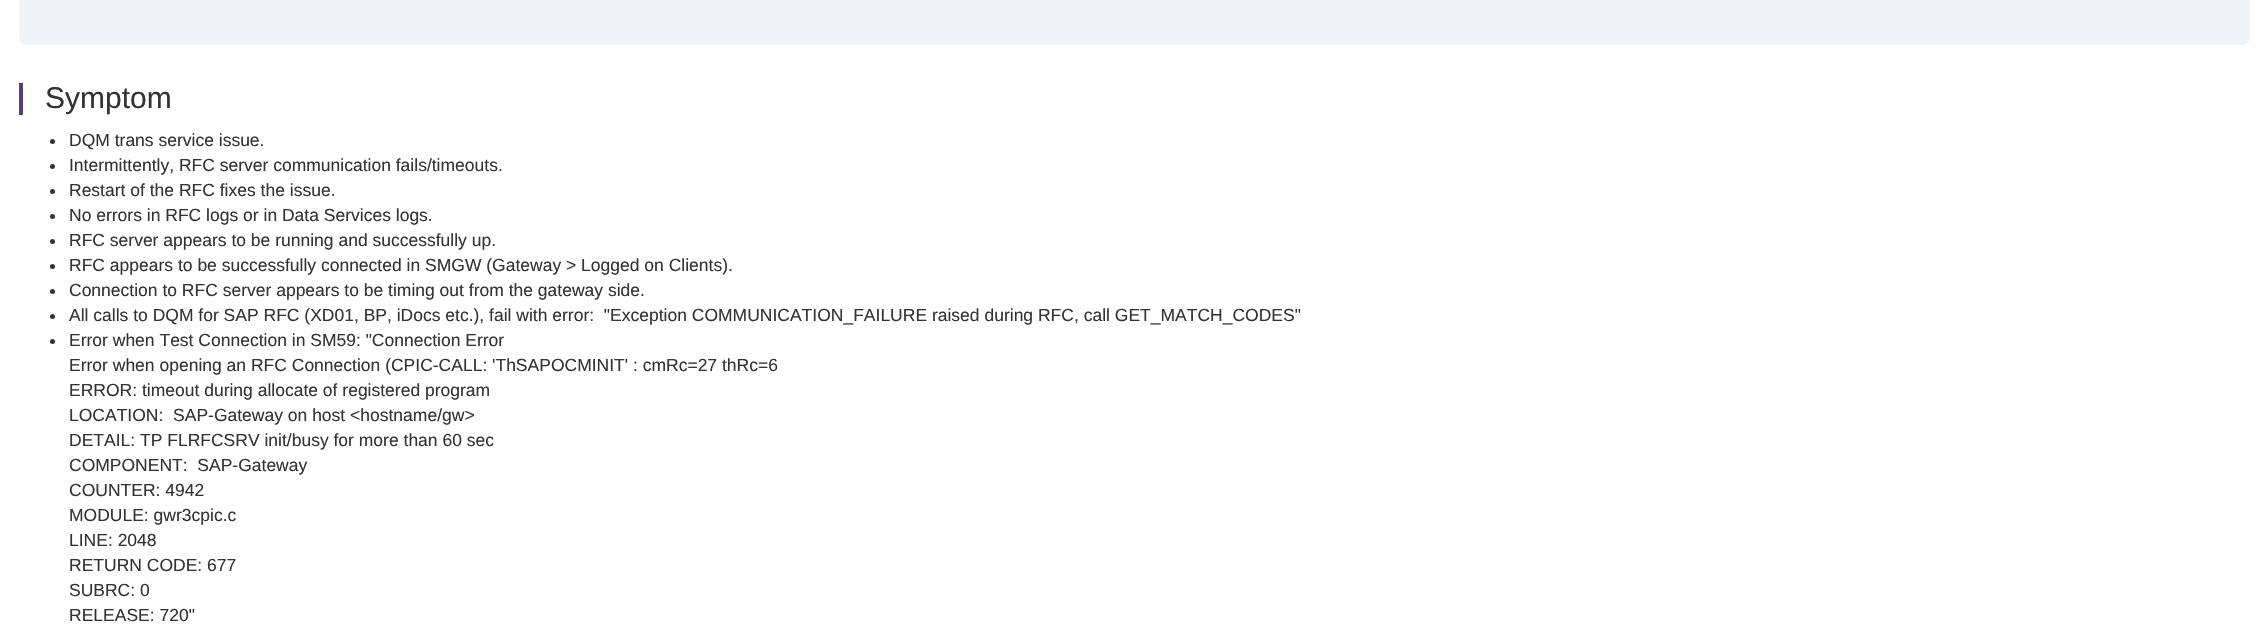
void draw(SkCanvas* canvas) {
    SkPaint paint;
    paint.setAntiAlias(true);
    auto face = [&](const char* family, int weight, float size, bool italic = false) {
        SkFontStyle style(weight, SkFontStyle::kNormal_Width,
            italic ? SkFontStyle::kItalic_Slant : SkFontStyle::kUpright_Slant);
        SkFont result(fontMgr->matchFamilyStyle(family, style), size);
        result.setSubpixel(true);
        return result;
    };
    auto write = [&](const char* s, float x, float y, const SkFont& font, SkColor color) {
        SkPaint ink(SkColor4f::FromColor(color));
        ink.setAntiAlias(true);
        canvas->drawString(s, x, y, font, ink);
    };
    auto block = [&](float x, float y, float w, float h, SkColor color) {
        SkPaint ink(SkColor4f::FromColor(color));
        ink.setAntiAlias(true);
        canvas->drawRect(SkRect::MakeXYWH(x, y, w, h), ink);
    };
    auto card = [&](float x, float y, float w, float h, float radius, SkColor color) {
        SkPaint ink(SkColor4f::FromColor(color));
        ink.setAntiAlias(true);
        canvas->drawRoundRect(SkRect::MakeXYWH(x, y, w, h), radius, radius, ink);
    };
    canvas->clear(SK_ColorWHITE);
    card(19, -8, 2231, 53, 8, SkColorSetRGB(239, 244, 249));
    block(19, 83, 4, 32, SkColorSetRGB(86, 61, 124));
    auto kFont1 = face("Liberation Sans", 400, 30);
    write("Symptom", 45, 108, kFont1, SkColorSetRGB(51, 51, 51));
    paint.setColor(SkColorSetRGB(51, 51, 51));
    canvas->drawCircle(52.5f, 141.5f, 2.5f, paint);
    auto kFont2 = face("Liberation Sans", 400, 17.5f);
    write("DQM trans service issue.", 69, 146, kFont2, SkColorSetRGB(51, 51, 51));
    canvas->drawCircle(52.5f, 166.5f, 2.5f, paint);
    write("Intermittently, RFC server communication fails/timeouts.", 69, 171, kFont2, SkColorSetRGB(51, 51, 51));
    canvas->drawCircle(52.5f, 191.5f, 2.5f, paint);
    write("Restart of the RFC fixes the issue.", 69, 196, kFont2, SkColorSetRGB(51, 51, 51));
    canvas->drawCircle(52.5f, 216.5f, 2.5f, paint);
    write("No errors in RFC logs or in Data Services logs.", 69, 221, kFont2, SkColorSetRGB(51, 51, 51));
    canvas->drawCircle(52.5f, 241.5f, 2.5f, paint);
    write("RFC server appears to be running and successfully up.", 69, 246, kFont2, SkColorSetRGB(51, 51, 51));
    canvas->drawCircle(52.5f, 266.5f, 2.5f, paint);
    write("RFC appears to be successfully connected in SMGW (Gateway > Logged on Clients).", 69, 271, kFont2, SkColorSetRGB(51, 51, 51));
    canvas->drawCircle(52.5f, 291.5f, 2.5f, paint);
    write("Connection to RFC server appears to be timing out from the gateway side.", 69, 296, kFont2, SkColorSetRGB(51, 51, 51));
    canvas->drawCircle(52.5f, 316.5f, 2.5f, paint);
    write("All calls to DQM for SAP RFC (XD01, BP, iDocs etc.), fail with error:  \"Exception COMMUNICATION_FAILURE raised during RFC, call GET_MATCH_CODES\"", 69, 321, kFont2, SkColorSetRGB(51, 51, 51));
    canvas->drawCircle(52.5f, 341.5f, 2.5f, paint);
    write("Error when Test Connection in SM59: \"Connection Error", 69, 346, kFont2, SkColorSetRGB(51, 51, 51));
    write("Error when opening an RFC Connection (CPIC-CALL: 'ThSAPOCMINIT' : cmRc=27 thRc=6", 69, 371, kFont2, SkColorSetRGB(51, 51, 51));
    write("ERROR: timeout during allocate of registered program", 69, 396, kFont2, SkColorSetRGB(51, 51, 51));
    write("LOCATION:  SAP-Gateway on host <hostname/gw>", 69, 421, kFont2, SkColorSetRGB(51, 51, 51));
    write("DETAIL: TP FLRFCSRV init/busy for more than 60 sec", 69, 446, kFont2, SkColorSetRGB(51, 51, 51));
    write("COMPONENT:  SAP-Gateway", 69, 471, kFont2, SkColorSetRGB(51, 51, 51));
    write("COUNTER: 4942", 69, 496, kFont2, SkColorSetRGB(51, 51, 51));
    write("MODULE: gwr3cpic.c", 69, 521, kFont2, SkColorSetRGB(51, 51, 51));
    write("LINE: 2048", 69, 546, kFont2, SkColorSetRGB(51, 51, 51));
    write("RETURN CODE: 677", 69, 571, kFont2, SkColorSetRGB(51, 51, 51));
    write("SUBRC: 0", 69, 596, kFont2, SkColorSetRGB(51, 51, 51));
    write("RELEASE: 720\"", 69, 621, kFont2, SkColorSetRGB(51, 51, 51));
}
